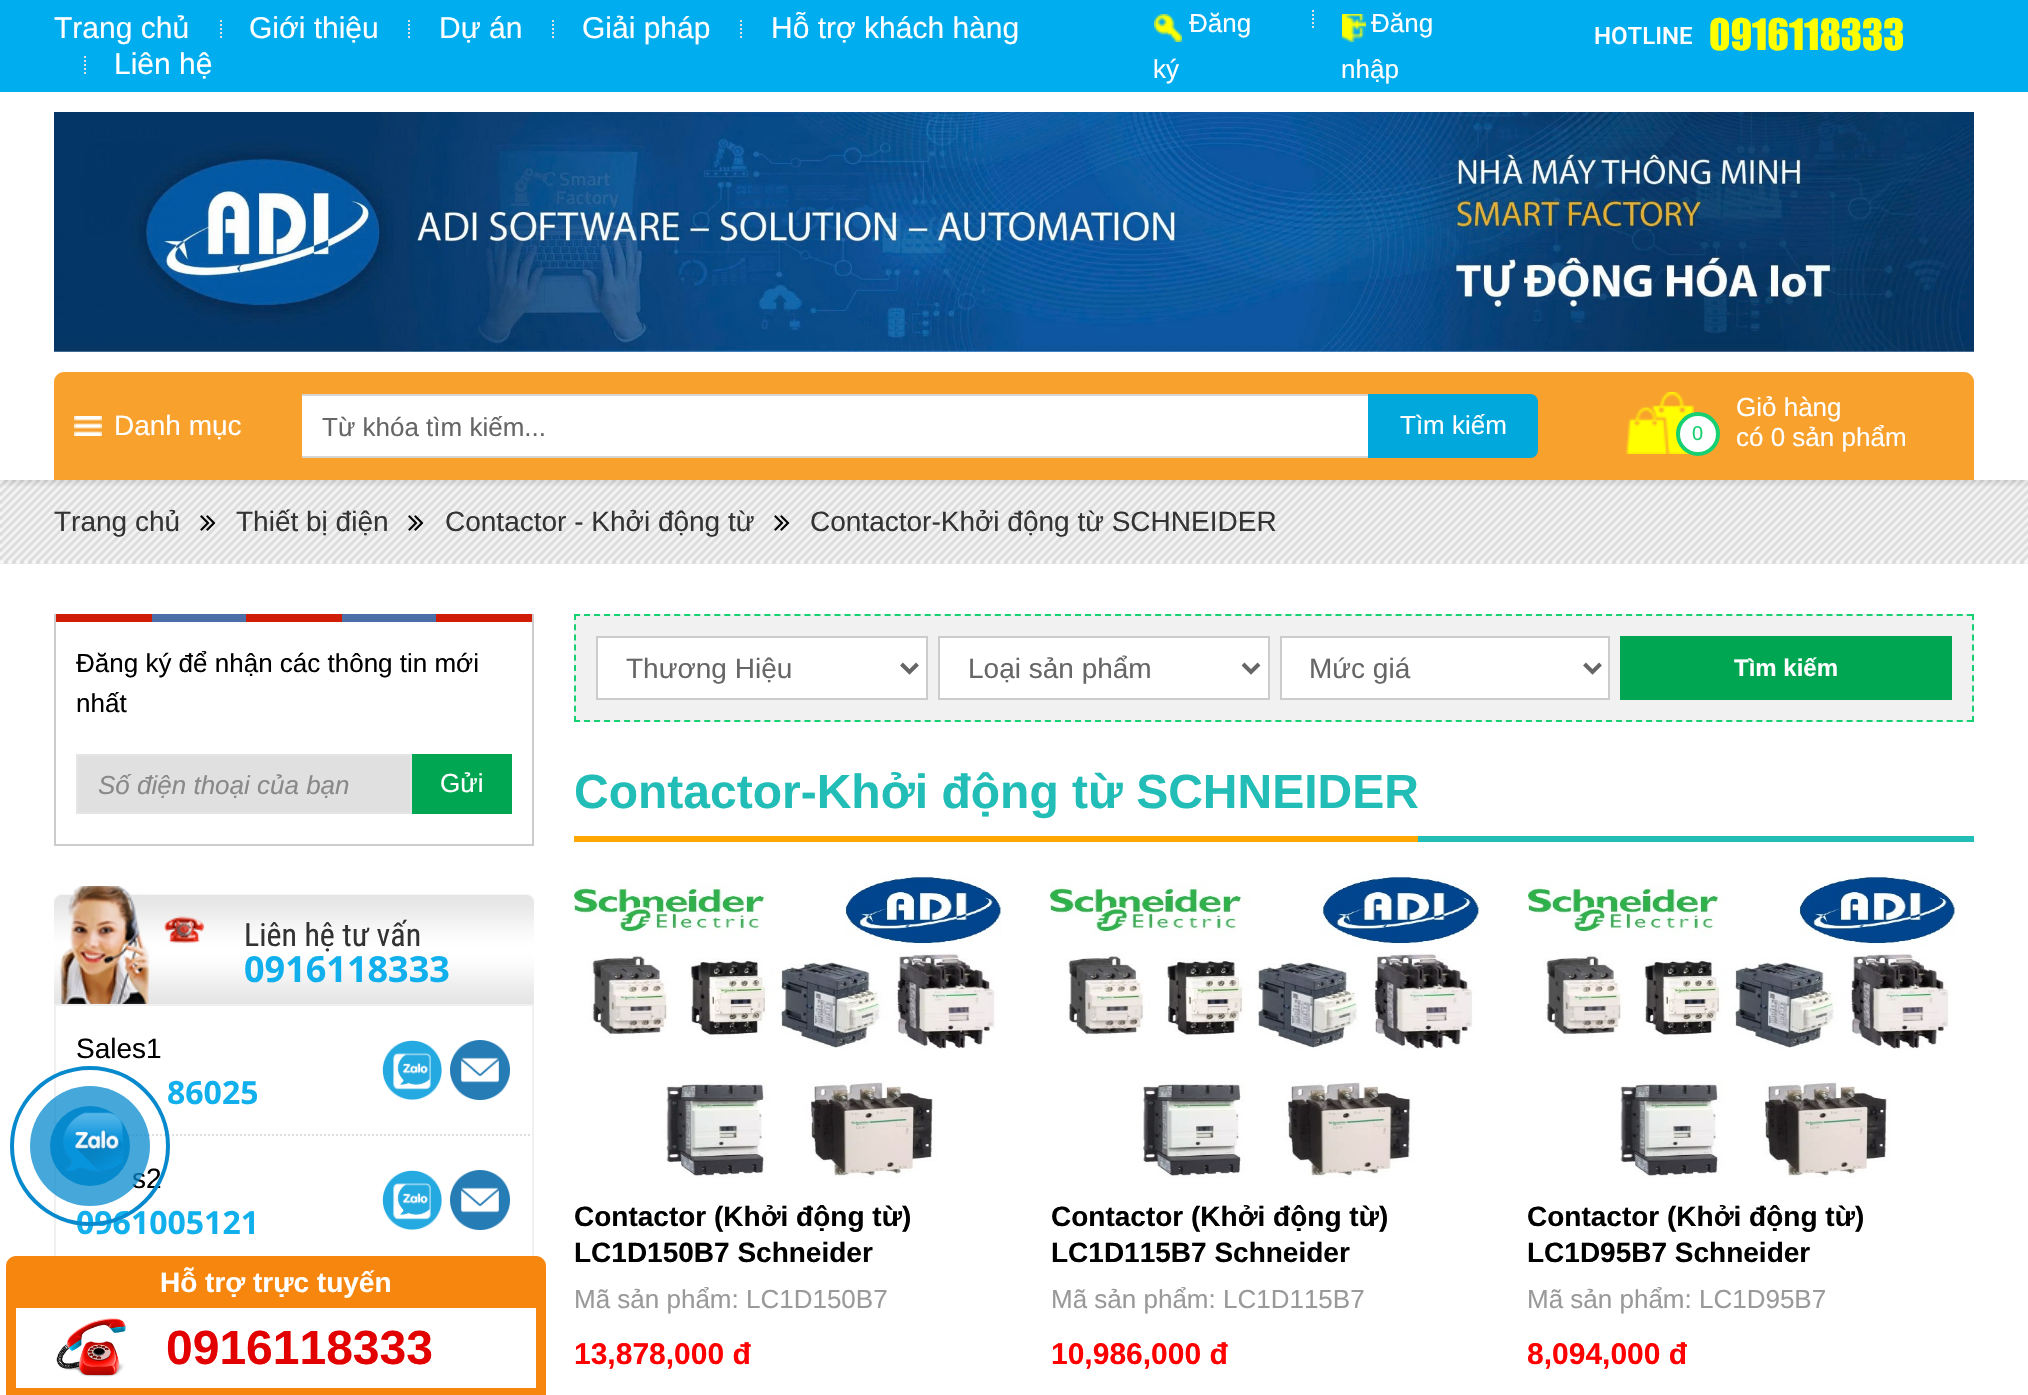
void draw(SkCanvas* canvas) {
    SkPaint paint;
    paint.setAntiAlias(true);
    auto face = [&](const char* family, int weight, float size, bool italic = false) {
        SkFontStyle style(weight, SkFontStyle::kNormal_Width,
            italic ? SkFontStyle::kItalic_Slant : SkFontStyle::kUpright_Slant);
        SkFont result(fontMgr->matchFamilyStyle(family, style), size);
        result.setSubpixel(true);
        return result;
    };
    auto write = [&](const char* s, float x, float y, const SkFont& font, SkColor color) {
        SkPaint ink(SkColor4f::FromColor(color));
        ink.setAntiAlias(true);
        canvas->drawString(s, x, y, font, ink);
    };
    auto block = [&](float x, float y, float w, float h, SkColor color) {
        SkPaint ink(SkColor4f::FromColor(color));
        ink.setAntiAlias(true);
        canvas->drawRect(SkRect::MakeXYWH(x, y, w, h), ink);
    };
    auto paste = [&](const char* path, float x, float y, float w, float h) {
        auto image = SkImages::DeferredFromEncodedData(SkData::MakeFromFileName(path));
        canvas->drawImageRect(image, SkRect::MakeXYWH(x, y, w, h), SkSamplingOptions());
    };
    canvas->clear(SK_ColorWHITE);
    paste("pic6.png", 0, 480, 2028, 84);
    canvas->save();
    canvas->clipRect(SkRect::MakeXYWH(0, 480, 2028, 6));
    paint.setColor(SkColorSetARGB(51, 0, 0, 0));
    paint.setMaskFilter(SkMaskFilter::MakeBlur(kNormal_SkBlurStyle, 5));
    canvas->drawRect(SkRect::MakeXYWH(0, 0, 2028, 480), paint);
    paint.setMaskFilter(nullptr);
    canvas->restore();
    block(0, 0, 2028, 92, SkColorSetRGB(0, 173, 239));
    auto kFont1 = face("Liberation Sans", 400, 30);
    write("Trang chủ", 54, 38, kFont1, SK_ColorWHITE);
    paint.setStyle(SkPaint::kStroke_Style);
    paint.setStrokeWidth(2);
    paint.setColor(SkColorSetRGB(225, 225, 225));
    paint.setPathEffect(SkDashPathEffect::Make({{2, 2}}, 0));
    canvas->drawPath(SkPathBuilder().moveTo(221, 20).lineTo(221, 40).detach(), paint);
    paint.setPathEffect(nullptr);
    write("Giới thiệu", 249, 38, kFont1, SK_ColorWHITE);
    paint.setPathEffect(SkDashPathEffect::Make({{2, 2}}, 0));
    canvas->drawPath(SkPathBuilder().moveTo(409, 20).lineTo(409, 40).detach(), paint);
    paint.setPathEffect(nullptr);
    write("Dự án", 439, 38, kFont1, SK_ColorWHITE);
    paint.setPathEffect(SkDashPathEffect::Make({{2, 2}}, 0));
    canvas->drawPath(SkPathBuilder().moveTo(553, 20).lineTo(553, 40).detach(), paint);
    paint.setPathEffect(nullptr);
    write("Giải pháp", 582, 38, kFont1, SK_ColorWHITE);
    paint.setPathEffect(SkDashPathEffect::Make({{2, 2}}, 0));
    canvas->drawPath(SkPathBuilder().moveTo(741, 20).lineTo(741, 40).detach(), paint);
    paint.setPathEffect(nullptr);
    write("Hỗ trợ khách hàng", 771, 38, kFont1, SK_ColorWHITE);
    paint.setPathEffect(SkDashPathEffect::Make({{2, 2}}, 0));
    canvas->drawPath(SkPathBuilder().moveTo(85, 56).lineTo(85, 76).detach(), paint);
    paint.setPathEffect(nullptr);
    write("Liên hệ", 114, 74, kFont1, SK_ColorWHITE);
    paste("pic1.png", 1154, 14, 28, 28);
    auto kFont2 = face("Liberation Sans", 400, 26);
    write("Đăng", 1189, 32, kFont2, SK_ColorWHITE);
    write("ký", 1153, 78, kFont2, SK_ColorWHITE);
    paint.setPathEffect(SkDashPathEffect::Make({{2, 2}}, 0));
    canvas->drawPath(SkPathBuilder().moveTo(1313, 10).lineTo(1313, 30).detach(), paint);
    paint.setPathEffect(nullptr);
    paste("pic2.png", 1342, 14, 24, 28);
    write("Đăng", 1371, 32, kFont2, SK_ColorWHITE);
    write("nhập", 1341, 78, kFont2, SK_ColorWHITE);
    auto kFont3 = face("Roboto", 500, 24);
    write("HOTLINE", 1594, 44, kFont3, SK_ColorWHITE);
    auto kFont4 = face("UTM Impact", 400, 40);
    write("0916118333", 1709, 50, kFont4, SkColorSetRGB(255, 255, 0));
    paste("pic3.png", 54, 112, 1920, 240);
    paint.setStyle(SkPaint::kFill_Style);
    paint.setColor(SkColorSetRGB(248, 161, 45));
    canvas->drawPath(SkPathBuilder().moveTo(64, 372).lineTo(1964, 372).cubicTo(1969.5f, 372, 1974, 376.5f, 1974, 382).lineTo(1974, 480).lineTo(54, 480).lineTo(54, 382).cubicTo(54, 376.5f, 58.5f, 372, 64, 372).close().detach(), paint);
    paste("pic4.png", 74, 416, 28, 20);
    auto kFont5 = face("Liberation Sans", 400, 28);
    write("Danh mục", 114, 435, kFont5, SK_ColorWHITE);
    block(302, 396, 1066, 60, SK_ColorWHITE);
    block(302, 394, 1066, 2, SkColorSetRGB(213, 213, 213));
    block(302, 456, 1066, 2, SkColorSetRGB(213, 213, 213));
    write("Từ khóa tìm kiếm...", 322, 436, kFont2, SkColorSetRGB(102, 102, 102));
    paint.setColor(SkColorSetRGB(1, 168, 220));
    canvas->drawPath(SkPathBuilder().moveTo(1368, 394).lineTo(1530, 394).cubicTo(1534.5f, 394, 1538, 397.5f, 1538, 402).lineTo(1538, 450).cubicTo(1538, 454.5f, 1534.5f, 458, 1530, 458).lineTo(1368, 458).close().detach(), paint);
    write("Tìm kiếm", 1400, 434, kFont2, SK_ColorWHITE);
    paste("pic5.png", 1626, 392, 68, 62);
    write("Giỏ hàng", 1736, 416, kFont2, SK_ColorWHITE);
    paint.setColor(SK_ColorWHITE);
    canvas->drawCircle(1698, 434, 20, paint);
    paint.setStyle(SkPaint::kStroke_Style);
    paint.setStrokeWidth(4);
    paint.setColor(SkColorSetRGB(23, 208, 113));
    canvas->drawCircle(1698, 434, 20, paint);
    auto kFont6 = face("Liberation Sans", 400, 20);
    write("0", 1692, 440, kFont6, SkColorSetRGB(23, 208, 113));
    write("có 0 sản phẩm", 1736, 446, kFont2, SK_ColorWHITE);
    write("Trang chủ", 54, 531, kFont5, SkColorSetRGB(51, 51, 51));
    paste("pic7.png", 200, 515, 16, 16);
    write("Thiết bị điện", 236, 531, kFont5, SkColorSetRGB(51, 51, 51));
    paste("pic7.png", 408, 515, 16, 16);
    write("Contactor - Khởi động từ", 445, 531, kFont5, SkColorSetRGB(51, 51, 51));
    paste("pic8.png", 774, 515, 16, 16);
    write("Contactor-Khởi động từ SCHNEIDER", 810, 531, kFont5, SkColorSetRGB(51, 51, 51));
    block(532, 614, 2, 232, SkColorSetRGB(204, 204, 204));
    block(54, 844, 480, 2, SkColorSetRGB(204, 204, 204));
    block(54, 614, 2, 232, SkColorSetRGB(204, 204, 204));
    block(56, 614, 96, 8, SkColorSetRGB(209, 29, 5));
    block(152, 614, 94, 8, SkColorSetRGB(75, 110, 168));
    block(246, 614, 96, 8, SkColorSetRGB(209, 29, 5));
    block(342, 614, 94, 8, SkColorSetRGB(75, 110, 168));
    block(436, 614, 96, 8, SkColorSetRGB(209, 29, 5));
    write("Đăng ký để nhận các thông tin mới", 76, 672, kFont2, SK_ColorBLACK);
    write("nhất", 76, 712, kFont2, SK_ColorBLACK);
    paint.setStyle(SkPaint::kFill_Style);
    paint.setColor(SkColorSetRGB(224, 224, 224));
    canvas->drawRect(SkRect::MakeXYWH(77, 755, 334, 58), paint);
    paint.setStyle(SkPaint::kStroke_Style);
    paint.setStrokeWidth(2);
    paint.setColor(SkColorSetRGB(229, 229, 229));
    canvas->drawRect(SkRect::MakeXYWH(77, 755, 334, 58), paint);
    auto kFont7 = face("Liberation Sans", 400, 26, true);
    write("Số điện thoại của bạn", 98, 794, kFont7, SkColorSetRGB(137, 137, 137));
    block(412, 754, 100, 60, SkColorSetRGB(0, 166, 81));
    write("Gửi", 440, 792, kFont2, SK_ColorWHITE);
    paste("pic9.png", 54, 886, 480, 118);
    auto kFont8 = face("Roboto Condensed", 400, 32);
    write("Liên hệ tư vấn", 244, 946, kFont8, SkColorSetRGB(51, 51, 51));
    auto kFont9 = face("Open Sans", 700, 36);
    write("0916118333", 244, 982, kFont9, SkColorSetRGB(17, 176, 237));
    paint.setColor(SkColorSetRGB(240, 240, 240));
    canvas->drawRect(SkRect::MakeXYWH(55, 1005, 478, 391), paint);
    write("Sales1", 76, 1058, kFont5, SK_ColorBLACK);
    auto kFont10 = face("Open Sans", 700, 32);
    write("86025", 167, 1104, kFont10, SkColorSetRGB(17, 176, 237));
    paste("pic10.png", 382, 1040, 60, 60);
    paste("pic11.png", 450, 1040, 60, 60);
    paint.setColor(SkColorSetRGB(222, 222, 222));
    paint.setPathEffect(SkDashPathEffect::Make({{2, 2}}, 0));
    canvas->drawPath(SkPathBuilder().moveTo(56, 1135).lineTo(532, 1135).detach(), paint);
    paint.setPathEffect(nullptr);
    write("s2", 132, 1188, kFont5, SK_ColorBLACK);
    write("0961005121", 76, 1234, kFont10, SkColorSetRGB(17, 176, 237));
    paste("pic12.png", 382, 1170, 60, 60);
    paste("pic11.png", 450, 1170, 60, 60);
    block(574, 614, 1400, 108, SkColorSetRGB(241, 241, 241));
    paint.setColor(SkColorSetRGB(23, 208, 113));
    paint.setPathEffect(SkDashPathEffect::Make({{6, 4.02f}}, 0));
    canvas->drawPath(SkPathBuilder().moveTo(574, 615).lineTo(1974, 615).detach(), paint);
    paint.setPathEffect(nullptr);
    paint.setPathEffect(SkDashPathEffect::Make({{6, 4.2f}}, 0));
    canvas->drawPath(SkPathBuilder().moveTo(1973, 614).lineTo(1973, 722).detach(), paint);
    paint.setPathEffect(nullptr);
    paint.setPathEffect(SkDashPathEffect::Make({{6, 4.02f}}, 0));
    canvas->drawPath(SkPathBuilder().moveTo(574, 721).lineTo(1974, 721).detach(), paint);
    paint.setPathEffect(nullptr);
    paint.setPathEffect(SkDashPathEffect::Make({{6, 4.2f}}, 0));
    canvas->drawPath(SkPathBuilder().moveTo(575, 614).lineTo(575, 722).detach(), paint);
    paint.setPathEffect(nullptr);
    paint.setStyle(SkPaint::kFill_Style);
    paint.setColor(SK_ColorWHITE);
    canvas->drawRect(SkRect::MakeXYWH(597, 637, 330, 62), paint);
    paint.setStyle(SkPaint::kStroke_Style);
    paint.setColor(SkColorSetRGB(204, 204, 204));
    canvas->drawRect(SkRect::MakeXYWH(597, 637, 330, 62), paint);
    paint.setStrokeWidth(4);
    paint.setColor(SkColorSetRGB(102, 102, 102));
    canvas->drawPath(SkPathBuilder().moveTo(901.5f, 664).lineTo(909.5f, 672).lineTo(917.5f, 664).detach(), paint);
    write("Thương Hiệu", 626, 678, kFont5, SkColorSetRGB(102, 102, 102));
    paint.setStyle(SkPaint::kFill_Style);
    paint.setColor(SK_ColorWHITE);
    canvas->drawRect(SkRect::MakeXYWH(939, 637, 330, 62), paint);
    paint.setStyle(SkPaint::kStroke_Style);
    paint.setStrokeWidth(2);
    paint.setColor(SkColorSetRGB(204, 204, 204));
    canvas->drawRect(SkRect::MakeXYWH(939, 637, 330, 62), paint);
    paint.setStrokeWidth(4);
    paint.setColor(SkColorSetRGB(102, 102, 102));
    canvas->drawPath(SkPathBuilder().moveTo(1243, 664).lineTo(1251, 672).lineTo(1259, 664).detach(), paint);
    write("Loại sản phẩm", 968, 678, kFont5, SkColorSetRGB(102, 102, 102));
    paint.setStyle(SkPaint::kFill_Style);
    paint.setColor(SK_ColorWHITE);
    canvas->drawRect(SkRect::MakeXYWH(1281, 637, 328, 62), paint);
    paint.setStyle(SkPaint::kStroke_Style);
    paint.setStrokeWidth(2);
    paint.setColor(SkColorSetRGB(204, 204, 204));
    canvas->drawRect(SkRect::MakeXYWH(1281, 637, 328, 62), paint);
    paint.setStrokeWidth(4);
    paint.setColor(SkColorSetRGB(102, 102, 102));
    canvas->drawPath(SkPathBuilder().moveTo(1584.5f, 664).lineTo(1592.5f, 672).lineTo(1600.5f, 664).detach(), paint);
    write("Mức giá", 1309, 678, kFont5, SkColorSetRGB(102, 102, 102));
    block(1620, 636, 332, 64, SkColorSetRGB(0, 166, 81));
    auto kFont11 = face("Liberation Sans", 700, 24);
    write("Tìm kiếm", 1734, 676, kFont11, SK_ColorWHITE);
    auto kFont12 = face("Liberation Sans", 700, 48);
    write("Contactor-Khởi động từ SCHNEIDER", 574, 808, kFont12, SkColorSetRGB(34, 189, 182));
    block(574, 836, 844, 6, SkColorSetRGB(254, 166, 1));
    block(1418, 836, 556, 6, SkColorSetRGB(34, 189, 182));
    paste("pic13.png", 574, 875, 428, 303);
    auto kFont13 = face("Liberation Sans", 700, 28);
    write("Contactor (Khởi động từ)", 574, 1226, kFont13, SK_ColorBLACK);
    write("LC1D150B7 Schneider", 574, 1262, kFont13, SK_ColorBLACK);
    write("Mã sản phẩm: LC1D150B7", 574, 1308, kFont2, SkColorSetRGB(153, 153, 153));
    auto kFont14 = face("Liberation Sans", 700, 30);
    write("13,878,000 đ", 574, 1364, kFont14, SkColorSetRGB(255, 0, 0));
    paste("pic14.png", 1050, 875, 430, 303);
    write("Contactor (Khởi động từ)", 1051, 1226, kFont13, SK_ColorBLACK);
    write("LC1D115B7 Schneider", 1051, 1262, kFont13, SK_ColorBLACK);
    write("Mã sản phẩm: LC1D115B7", 1051, 1308, kFont2, SkColorSetRGB(153, 153, 153));
    write("10,986,000 đ", 1051, 1364, kFont14, SkColorSetRGB(255, 0, 0));
    paste("pic15.png", 1528, 875, 428, 303);
    write("Contactor (Khởi động từ)", 1527, 1226, kFont13, SK_ColorBLACK);
    write("LC1D95B7 Schneider", 1527, 1262, kFont13, SK_ColorBLACK);
    write("Mã sản phẩm: LC1D95B7", 1527, 1308, kFont2, SkColorSetRGB(153, 153, 153));
    write("8,094,000 đ", 1527, 1364, kFont14, SkColorSetRGB(255, 0, 0));
    paint.setColor(SkColorSetRGB(7, 137, 205));
    canvas->drawCircle(90, 1146, 78, paint);
    paint.setStyle(SkPaint::kFill_Style);
    paint.setColor(SkColorSetARGB(191, 7, 137, 205));
    canvas->drawCircle(90, 1146, 60, paint);
    paint.setColor(SkColorSetRGB(7, 137, 205));
    canvas->drawCircle(90, 1146, 40, paint);
    paste("pic16.png", 63, 1112, 60, 60);
    paint.setColor(SkColorSetRGB(246, 134, 14));
    canvas->drawPath(SkPathBuilder().moveTo(16, 1256).lineTo(536, 1256).cubicTo(541.5f, 1256, 546, 1260.5f, 546, 1266).lineTo(546, 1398).lineTo(6, 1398).lineTo(6, 1266).cubicTo(6, 1260.5f, 10.5f, 1256, 16, 1256).close().detach(), paint);
    write("Hỗ trợ trực tuyến", 160, 1292, kFont13, SK_ColorWHITE);
    block(16, 1308, 520, 80, SK_ColorWHITE);
    paste("pic17.png", 56, 1318, 70, 59);
    write("0916118333", 166, 1364, kFont12, SkColorSetRGB(226, 0, 0));
}
